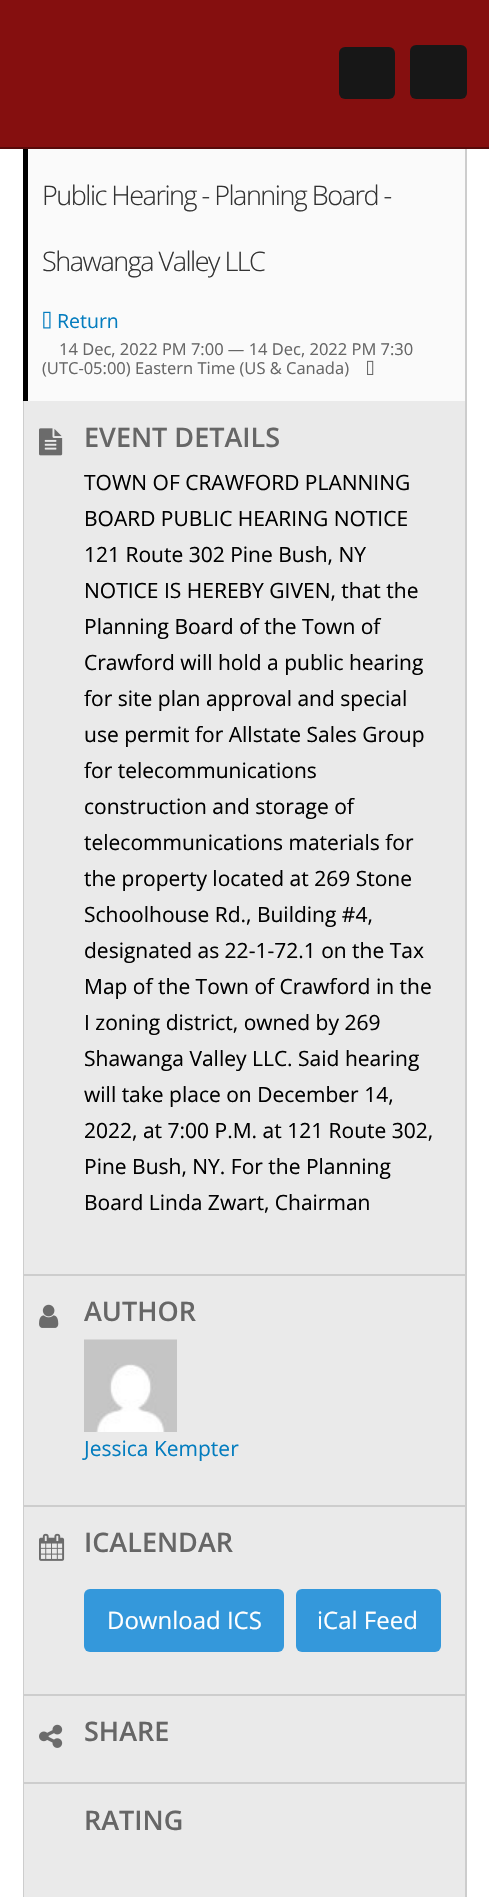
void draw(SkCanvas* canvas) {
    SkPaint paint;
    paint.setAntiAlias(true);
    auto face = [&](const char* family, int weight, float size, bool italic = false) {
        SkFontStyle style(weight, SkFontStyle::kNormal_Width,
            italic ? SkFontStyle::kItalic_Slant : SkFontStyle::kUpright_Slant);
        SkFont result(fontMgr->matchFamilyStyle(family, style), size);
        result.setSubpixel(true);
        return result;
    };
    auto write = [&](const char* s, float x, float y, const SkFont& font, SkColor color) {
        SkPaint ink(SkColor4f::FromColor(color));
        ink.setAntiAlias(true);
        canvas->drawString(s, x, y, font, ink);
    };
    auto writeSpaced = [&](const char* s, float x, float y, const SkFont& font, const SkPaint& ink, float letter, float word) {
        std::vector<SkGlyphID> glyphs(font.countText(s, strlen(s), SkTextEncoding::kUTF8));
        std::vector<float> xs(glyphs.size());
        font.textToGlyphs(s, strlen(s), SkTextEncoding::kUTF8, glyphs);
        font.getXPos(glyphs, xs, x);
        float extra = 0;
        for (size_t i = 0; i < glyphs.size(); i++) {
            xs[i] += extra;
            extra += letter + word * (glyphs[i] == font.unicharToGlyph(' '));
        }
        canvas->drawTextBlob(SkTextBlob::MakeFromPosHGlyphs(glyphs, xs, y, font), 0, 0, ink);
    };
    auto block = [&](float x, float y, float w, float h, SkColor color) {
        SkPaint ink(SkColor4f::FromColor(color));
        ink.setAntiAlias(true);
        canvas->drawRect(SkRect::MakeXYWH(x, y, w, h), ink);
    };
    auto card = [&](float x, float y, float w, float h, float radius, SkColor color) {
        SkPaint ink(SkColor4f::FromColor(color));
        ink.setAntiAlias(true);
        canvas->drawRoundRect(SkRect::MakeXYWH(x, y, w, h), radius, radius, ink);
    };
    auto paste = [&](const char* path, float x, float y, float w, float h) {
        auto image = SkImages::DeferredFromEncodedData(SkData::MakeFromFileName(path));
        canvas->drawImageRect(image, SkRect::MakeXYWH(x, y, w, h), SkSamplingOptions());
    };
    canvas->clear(SK_ColorWHITE);
    block(28, 149, 437, 252, SkColorSetRGB(250, 250, 250));
    paint.setStyle(SkPaint::kStroke_Style);
    paint.setStrokeWidth(2);
    paint.setColor(SkColorSetRGB(205, 205, 205));
    canvas->drawRect(SkRect::MakeXYWH(24, 39, 442, 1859), paint);
    block(0, 0, 489, 147, SkColorSetRGB(133, 15, 15));
    block(0, 147, 489, 2, SkColorSetRGB(87, 10, 10));
    card(339, 47, 56, 52, 6, SkColorSetRGB(23, 23, 23));
    card(410, 45, 57, 54, 6, SkColorSetRGB(23, 23, 23));
    block(23, 149, 5, 252, SK_ColorBLACK);
    auto kFont1 = face("Open Sans", 300, 27);
    paint.setStyle(SkPaint::kFill_Style);
    paint.setColor(SkColorSetRGB(51, 51, 51));
    writeSpaced("Public Hearing - Planning Board -", 42, 205, kFont1, paint, -1.5f, 0);
    writeSpaced("Shawanga Valley LLC", 42, 271, kFont1, paint, -1.5f, 0);
    paste("pic1.png", 43, 311, 8, 18);
    auto kFont2 = face("Open Sans", 400, 19.5f);
    write("Return", 57, 328, kFont2, SkColorSetRGB(4, 125, 191));
    auto kFont3 = face("Open Sans", 400, 16.5f);
    write("14 Dec, 2022 PM 7:00 — 14 Dec, 2022 PM 7:30", 59, 355, kFont3, SkColorSetRGB(102, 102, 102));
    write("(UTC-05:00) Eastern Time (US & Canada)", 42, 374, kFont3, SkColorSetRGB(102, 102, 102));
    paste("pic2.png", 367, 360, 7, 15);
    block(24, 401, 441, 1496, SkColorSetRGB(234, 234, 234));
    block(24, 1274, 441, 2, SkColorSetRGB(205, 205, 205));
    paste("pic3.png", 39, 428, 24, 28);
    auto kFont4 = face("Open Sans", 600, 27);
    write("EVENT DETAILS", 84, 447, kFont4, SkColorSetRGB(102, 102, 102));
    auto kFont5 = face("Open Sans", 400, 21);
    write("TOWN OF CRAWFORD PLANNING", 84, 490, kFont5, SK_ColorBLACK);
    write("BOARD PUBLIC HEARING NOTICE", 84, 526, kFont5, SK_ColorBLACK);
    write("121 Route 302 Pine Bush, NY", 84, 562, kFont5, SK_ColorBLACK);
    write("NOTICE IS HEREBY GIVEN, that the", 84, 598, kFont5, SK_ColorBLACK);
    write("Planning Board of the Town of", 84, 634, kFont5, SK_ColorBLACK);
    write("Crawford will hold a public hearing", 84, 670, kFont5, SK_ColorBLACK);
    write("for site plan approval and special", 84, 706, kFont5, SK_ColorBLACK);
    write("use permit for Allstate Sales Group", 84, 742, kFont5, SK_ColorBLACK);
    write("for telecommunications", 84, 778, kFont5, SK_ColorBLACK);
    write("construction and storage of", 84, 814, kFont5, SK_ColorBLACK);
    write("telecommunications materials for", 84, 850, kFont5, SK_ColorBLACK);
    write("the property located at 269 Stone", 84, 886, kFont5, SK_ColorBLACK);
    write("Schoolhouse Rd., Building #4,", 84, 922, kFont5, SK_ColorBLACK);
    write("designated as 22-1-72.1 on the Tax", 84, 958, kFont5, SK_ColorBLACK);
    write("Map of the Town of Crawford in the", 84, 994, kFont5, SK_ColorBLACK);
    write("I zoning district, owned by 269", 84, 1030, kFont5, SK_ColorBLACK);
    write("Shawanga Valley LLC. Said hearing", 84, 1066, kFont5, SK_ColorBLACK);
    write("will take place on December 14,", 84, 1102, kFont5, SK_ColorBLACK);
    write("2022, at 7:00 P.M. at 121 Route 302,", 84, 1138, kFont5, SK_ColorBLACK);
    write("Pine Bush, NY. For the Planning", 84, 1174, kFont5, SK_ColorBLACK);
    write("Board Linda Zwart, Chairman", 84, 1210, kFont5, SK_ColorBLACK);
    block(24, 1505, 441, 2, SkColorSetRGB(205, 205, 205));
    paste("pic4.png", 39, 1304, 20, 24);
    write("AUTHOR", 84, 1321, kFont4, SkColorSetRGB(102, 102, 102));
    paste("pic5.png", 84, 1339, 93, 93);
    write("Jessica Kempter", 84, 1456, kFont5, SkColorSetRGB(4, 125, 191));
    block(24, 1694, 441, 2, SkColorSetRGB(205, 205, 205));
    paste("pic6.png", 39, 1533, 26, 28);
    write("ICALENDAR", 84, 1552, kFont4, SkColorSetRGB(102, 102, 102));
    card(84, 1589, 200, 63, 6, SkColorSetRGB(52, 152, 219));
    auto kFont6 = face("Open Sans", 400, 24);
    write("Download ICS", 107, 1629, kFont6, SK_ColorWHITE);
    card(296, 1589, 145, 63, 6, SkColorSetRGB(52, 152, 219));
    write("iCal Feed", 317, 1629, kFont6, SK_ColorWHITE);
    block(24, 1782, 441, 2, SkColorSetRGB(205, 205, 205));
    paste("pic7.png", 39, 1724, 24, 24);
    write("SHARE", 84, 1741, kFont4, SkColorSetRGB(102, 102, 102));
    write("RATING", 84, 1830, kFont4, SkColorSetRGB(102, 102, 102));
}
